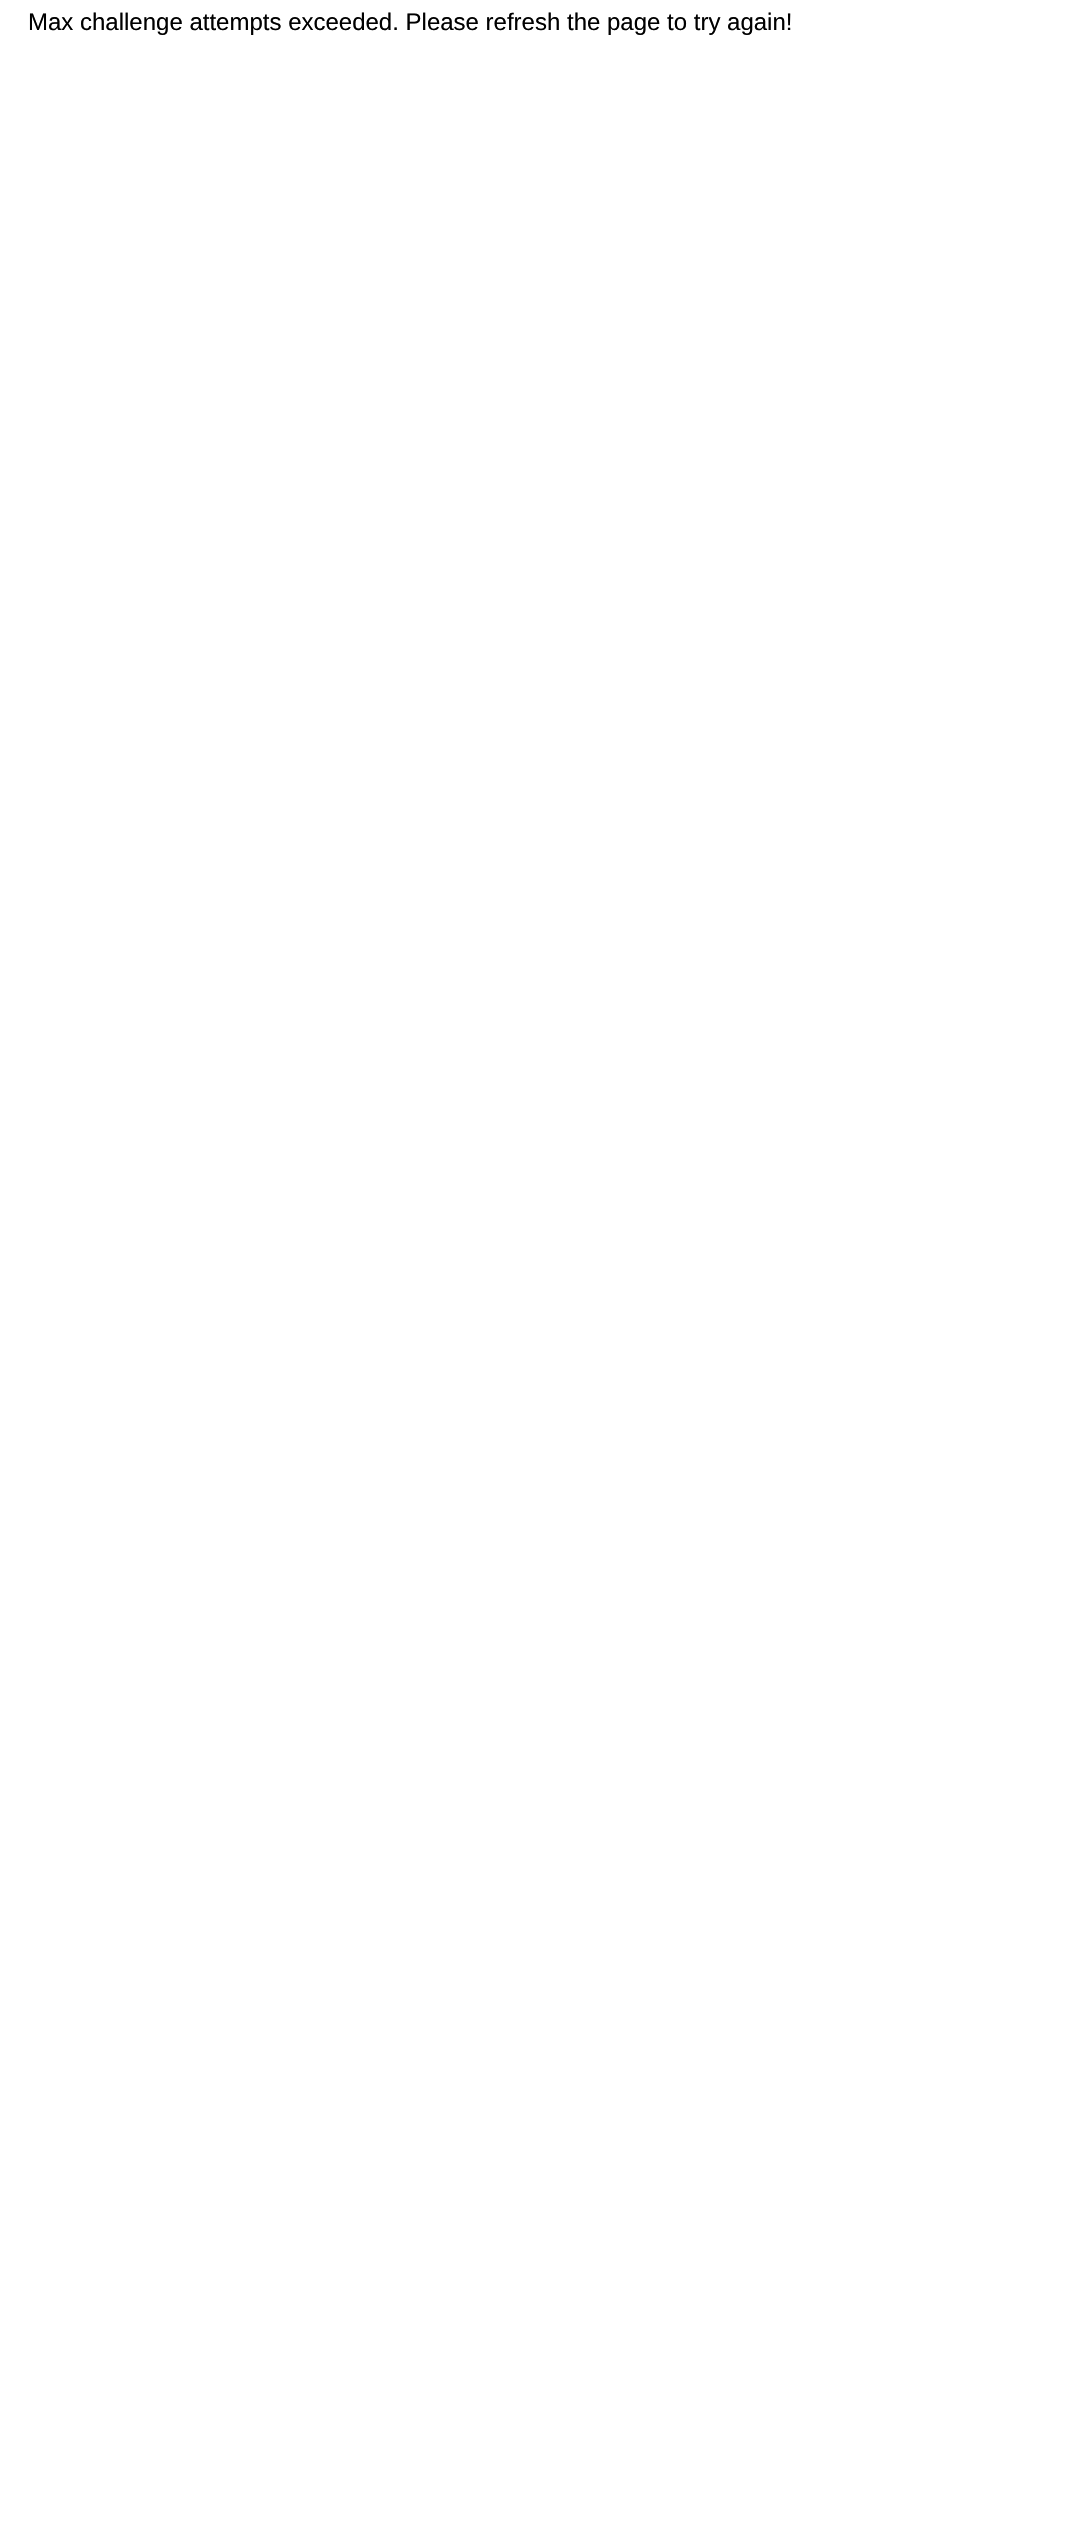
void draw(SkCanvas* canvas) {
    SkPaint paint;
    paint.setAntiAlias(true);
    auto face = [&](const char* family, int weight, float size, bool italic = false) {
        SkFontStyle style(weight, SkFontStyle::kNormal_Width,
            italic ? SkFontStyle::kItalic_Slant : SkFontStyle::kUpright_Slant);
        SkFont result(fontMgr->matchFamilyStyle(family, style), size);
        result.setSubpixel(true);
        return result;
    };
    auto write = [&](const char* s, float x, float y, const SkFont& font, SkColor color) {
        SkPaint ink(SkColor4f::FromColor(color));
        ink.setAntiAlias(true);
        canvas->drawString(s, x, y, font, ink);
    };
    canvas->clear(SK_ColorWHITE);
    auto kFont1 = face("Liberation Sans", 400, 24);
    write("Max challenge attempts exceeded. Please refresh the page to try again!", 28, 30, kFont1, SK_ColorBLACK);
}
